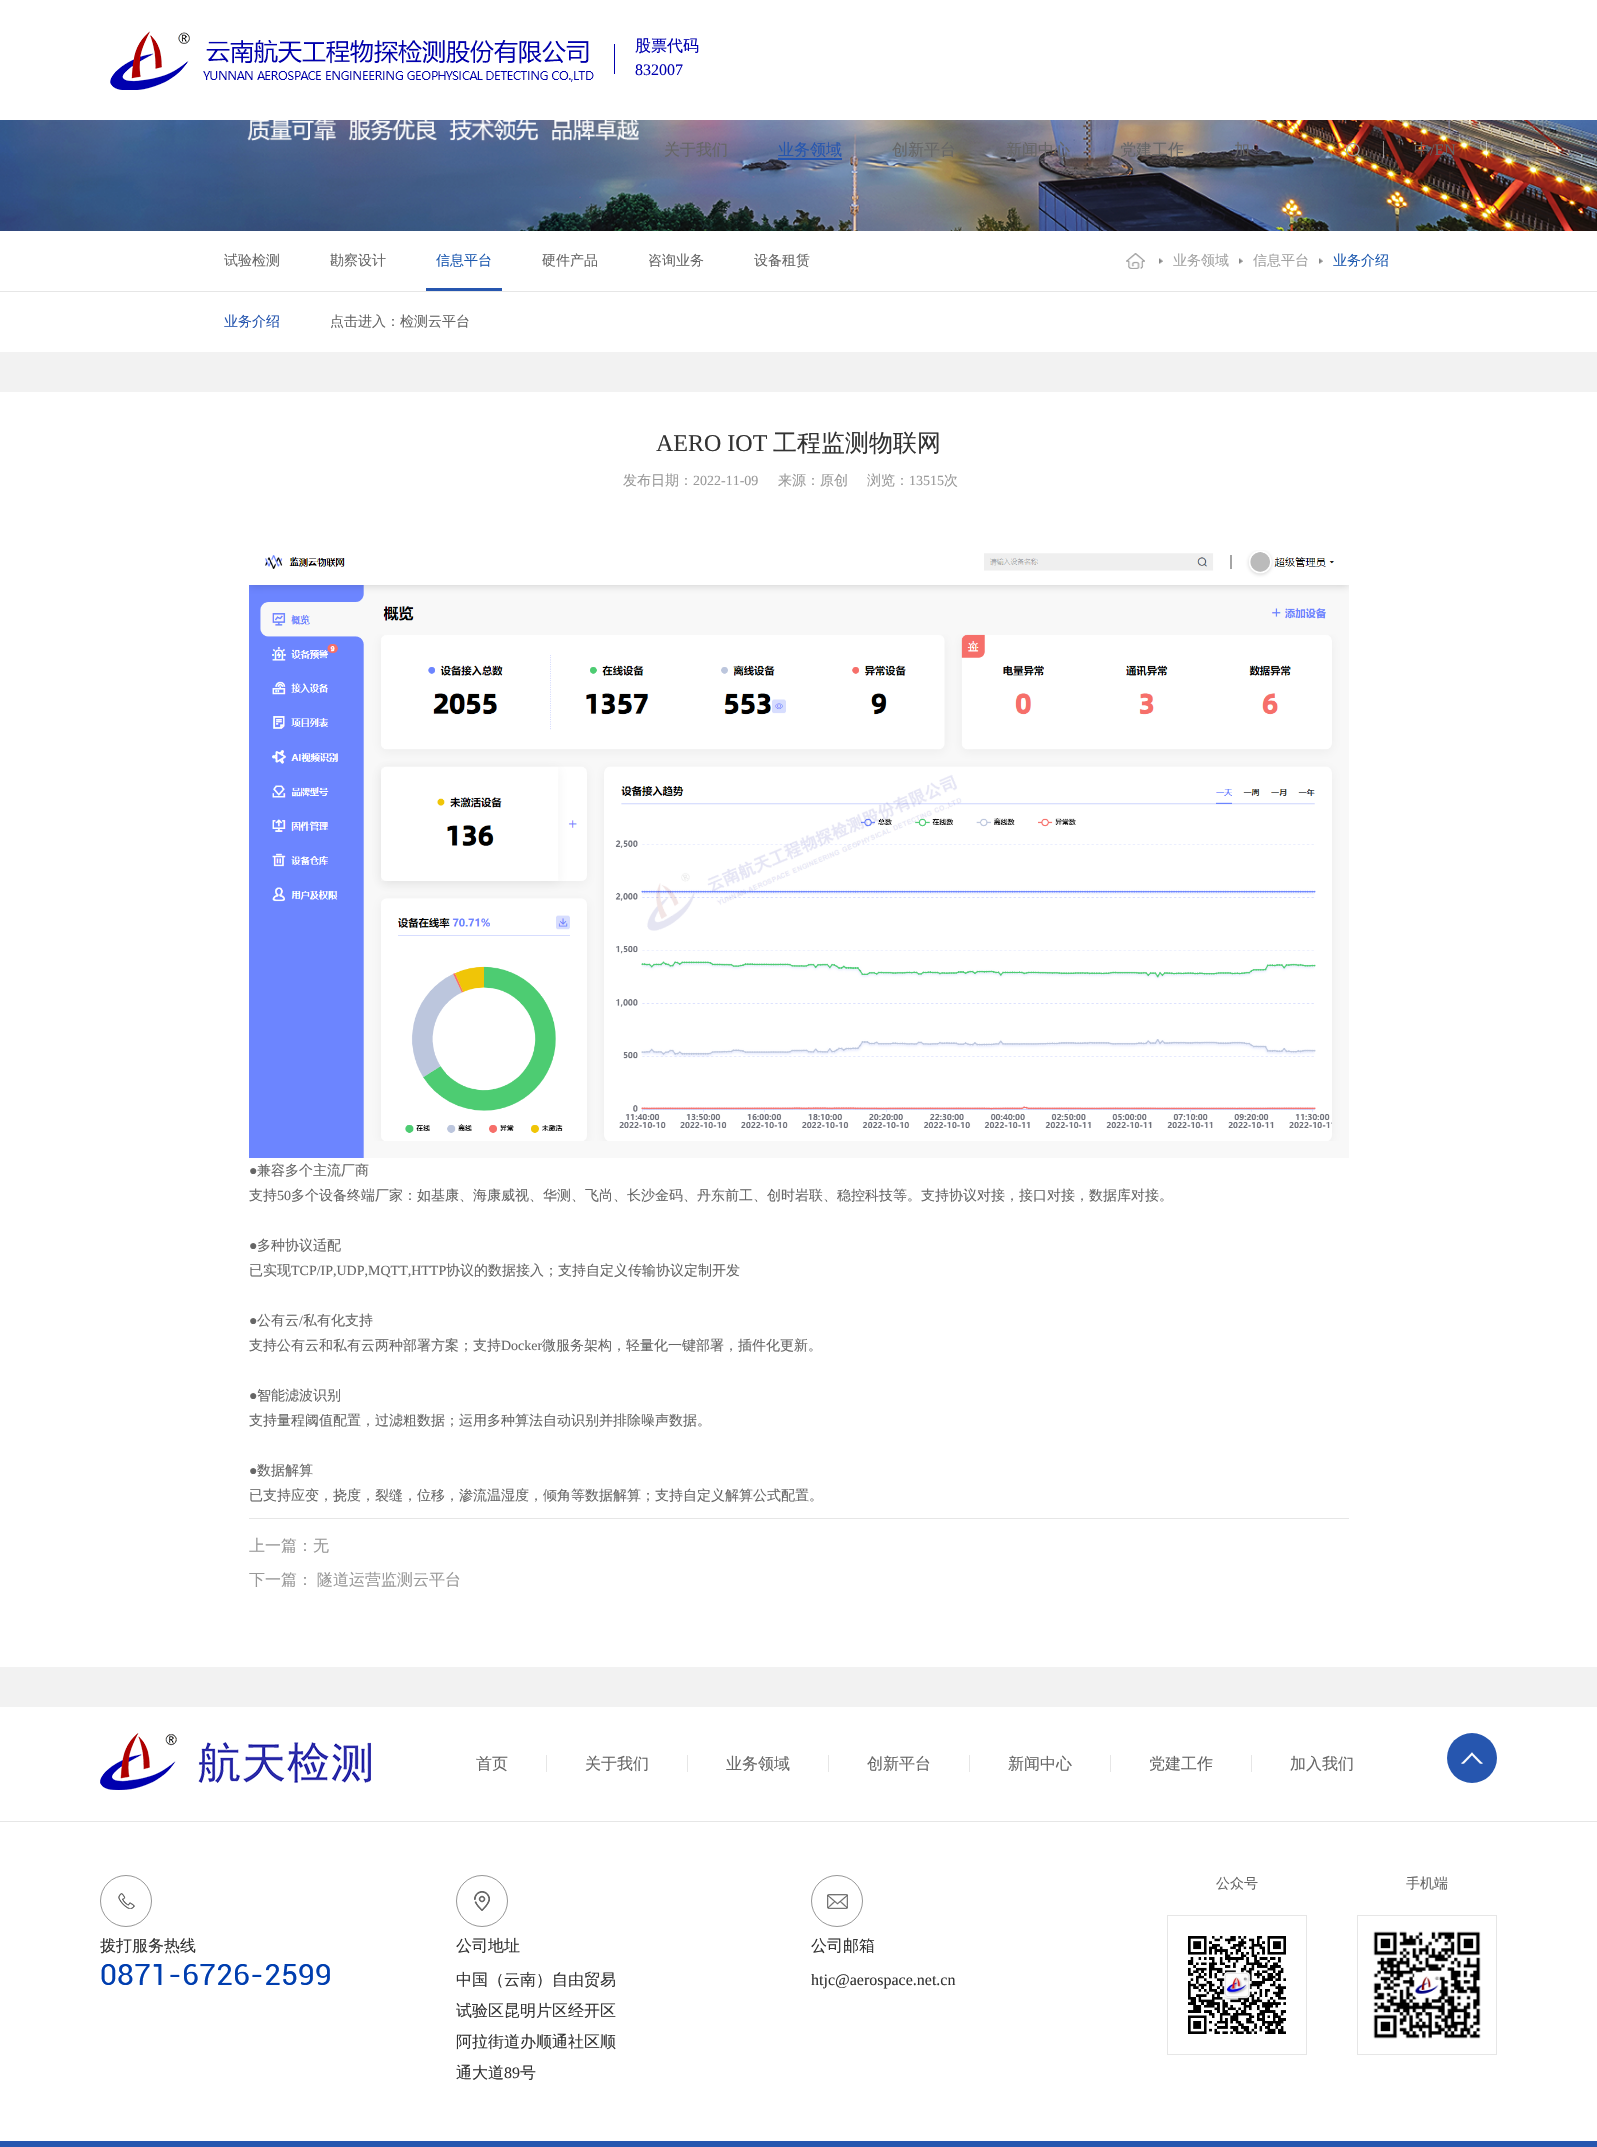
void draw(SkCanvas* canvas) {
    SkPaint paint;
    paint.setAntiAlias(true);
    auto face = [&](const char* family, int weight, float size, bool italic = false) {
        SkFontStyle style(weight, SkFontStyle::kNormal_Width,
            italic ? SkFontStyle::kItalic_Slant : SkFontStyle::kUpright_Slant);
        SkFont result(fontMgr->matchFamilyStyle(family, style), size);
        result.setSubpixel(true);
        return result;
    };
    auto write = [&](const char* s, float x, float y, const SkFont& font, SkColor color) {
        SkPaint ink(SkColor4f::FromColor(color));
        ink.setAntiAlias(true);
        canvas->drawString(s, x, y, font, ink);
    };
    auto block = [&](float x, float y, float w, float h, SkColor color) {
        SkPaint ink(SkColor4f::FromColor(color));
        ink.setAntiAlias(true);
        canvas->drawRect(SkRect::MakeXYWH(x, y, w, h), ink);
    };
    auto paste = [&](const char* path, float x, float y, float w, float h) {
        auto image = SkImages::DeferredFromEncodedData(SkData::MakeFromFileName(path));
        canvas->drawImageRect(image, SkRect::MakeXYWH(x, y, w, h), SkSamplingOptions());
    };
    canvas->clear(SK_ColorWHITE);
    paste("pic1.png", 110, 31, 484, 59);
    block(614, 44, 1, 30, SkColorSetRGB(0, 0, 175));
    auto kFont1 = face("WenQuanYi Zen Hei", 500, 16);
    write("股票代码", 635, 51, kFont1, SkColorSetRGB(0, 0, 175));
    auto kFont2 = face("Liberation Serif", 400, 16);
    write("832007", 635, 75, kFont2, SkColorSetRGB(0, 0, 175));
    paste("pic3.png", 0, 120, 1597, 111);
    write("关于我们", 664, 155, kFont1, SkColorSetRGB(102, 102, 102));
    write("业务领域", 778, 155, kFont1, SkColorSetRGB(38, 86, 175));
    block(778, 158, 64, 2, SkColorSetRGB(38, 86, 175));
    write("创新平台", 892, 155, kFont1, SkColorSetRGB(102, 102, 102));
    write("新闻中心", 1006, 155, kFont1, SkColorSetRGB(102, 102, 102));
    write("党建工作", 1120, 155, kFont1, SkColorSetRGB(102, 102, 102));
    write("加", 1234, 155, kFont1, SkColorSetRGB(102, 102, 102));
    paste("pic2.png", 1346, 143, 15, 15);
    write("中", 1414, 155, kFont1, SkColorSetRGB(102, 102, 102));
    block(1383, 141, 1, 17, SkColorSetARGB(128, 255, 255, 255));
    write("/EN", 1430, 155, kFont2, SkColorSetRGB(102, 102, 102));
    block(1486, 141, 1, 17, SkColorSetARGB(128, 255, 255, 255));
    auto kFont3 = face("WenQuanYi Zen Hei", 500, 14);
    write("试验检测", 224, 265, kFont3, SkColorSetRGB(102, 102, 102));
    write("勘察设计", 330, 265, kFont3, SkColorSetRGB(102, 102, 102));
    write("信息平台", 436, 265, kFont3, SkColorSetRGB(30, 90, 176));
    write("硬件产品", 542, 265, kFont3, SkColorSetRGB(102, 102, 102));
    write("咨询业务", 648, 265, kFont3, SkColorSetRGB(102, 102, 102));
    write("设备租赁", 754, 265, kFont3, SkColorSetRGB(102, 102, 102));
    paste("pic4.png", 1126, 253, 19, 16);
    paste("pic5.png", 1159, 258, 4, 6);
    write("业务领域", 1173, 265, kFont3, SkColorSetRGB(163, 163, 163));
    paste("pic5.png", 1239, 258, 4, 6);
    write("信息平台", 1253, 265, kFont3, SkColorSetRGB(163, 163, 163));
    paste("pic5.png", 1319, 258, 4, 6);
    write("业务介绍", 1333, 265, kFont3, SkColorSetRGB(30, 90, 176));
    block(426, 288, 76, 3, SkColorSetRGB(38, 86, 175));
    block(0, 291, 1597, 1, SkColorSetRGB(230, 230, 230));
    write("业务介绍", 224, 326, kFont3, SkColorSetRGB(38, 86, 175));
    write("点击进入：检测云平台", 330, 326, kFont3, SkColorSetRGB(102, 102, 102));
    block(0, 352, 1597, 40, SkColorSetRGB(242, 242, 242));
    auto kFont4 = face("Liberation Serif", 400, 24);
    write("AERO IOT", 656, 451, kFont4, SkColorSetRGB(51, 51, 51));
    auto kFont5 = face("WenQuanYi Zen Hei", 500, 24);
    write("工程监测物联网", 773, 451, kFont5, SkColorSetRGB(51, 51, 51));
    write("发布日期：", 623, 485, kFont3, SkColorSetRGB(153, 153, 153));
    auto kFont6 = face("Liberation Serif", 400, 14);
    write("2022-11-09", 693, 485, kFont6, SkColorSetRGB(153, 153, 153));
    write("来源：原创", 778, 485, kFont3, SkColorSetRGB(153, 153, 153));
    write("浏览：", 867, 485, kFont3, SkColorSetRGB(153, 153, 153));
    write("13515", 909, 485, kFont6, SkColorSetRGB(153, 153, 153));
    write("次", 944, 485, kFont3, SkColorSetRGB(153, 153, 153));
    paste("pic6.png", 249, 550, 1100, 608);
    write("●", 249, 1175, kFont6, SkColorSetRGB(102, 102, 102));
    write("兼容多个主流厂商", 257, 1175, kFont3, SkColorSetRGB(102, 102, 102));
    write("支持", 249, 1200, kFont3, SkColorSetRGB(102, 102, 102));
    write("50", 277, 1200, kFont6, SkColorSetRGB(102, 102, 102));
    write("多个设备终端厂家：如基康、海康威视、华测、飞尚、长沙金码、丹东前工、创时岩联、稳控科技等。支持协议对接，接口对接，数据库对接。", 291, 1200, kFont3, SkColorSetRGB(102, 102, 102));
    write("●", 249, 1250, kFont6, SkColorSetRGB(102, 102, 102));
    write("多种协议适配", 257, 1250, kFont3, SkColorSetRGB(102, 102, 102));
    write("已实现", 249, 1275, kFont3, SkColorSetRGB(102, 102, 102));
    write("TCP/IP,UDP,MQTT,HTTP", 291, 1275, kFont6, SkColorSetRGB(102, 102, 102));
    write("协议的数据接入；支持自定义传输协议定制开发", 446, 1275, kFont3, SkColorSetRGB(102, 102, 102));
    write("●", 249, 1325, kFont6, SkColorSetRGB(102, 102, 102));
    write("公有云", 257, 1325, kFont3, SkColorSetRGB(102, 102, 102));
    write("/", 299, 1325, kFont6, SkColorSetRGB(102, 102, 102));
    write("私有化支持", 303, 1325, kFont3, SkColorSetRGB(102, 102, 102));
    write("支持公有云和私有云两种部署方案；支持", 249, 1350, kFont3, SkColorSetRGB(102, 102, 102));
    write("Docker", 501, 1350, kFont6, SkColorSetRGB(102, 102, 102));
    write("微服务架构，轻量化一键部署，插件化更新。", 542, 1350, kFont3, SkColorSetRGB(102, 102, 102));
    write("●", 249, 1400, kFont6, SkColorSetRGB(102, 102, 102));
    write("智能滤波识别", 257, 1400, kFont3, SkColorSetRGB(102, 102, 102));
    write("支持量程阈值配置，过滤粗数据；运用多种算法自动识别并排除噪声数据。", 249, 1425, kFont3, SkColorSetRGB(102, 102, 102));
    write("●", 249, 1475, kFont6, SkColorSetRGB(102, 102, 102));
    write("数据解算", 257, 1475, kFont3, SkColorSetRGB(102, 102, 102));
    write("已支持应变，挠度，裂缝，位移，渗流温湿度，倾角等数据解算；支持自定义解算公式配置。", 249, 1500, kFont3, SkColorSetRGB(102, 102, 102));
    block(249, 1518, 1100, 1, SkColorSetRGB(230, 230, 230));
    write("上一篇：无", 249, 1551, kFont1, SkColorSetRGB(153, 153, 153));
    write("下一篇：", 249, 1585, kFont1, SkColorSetRGB(153, 153, 153));
    write("隧道运营监测云平台", 317, 1585, kFont1, SkColorSetRGB(153, 153, 153));
    block(0, 1667, 1597, 40, SkColorSetRGB(242, 242, 242));
    block(0, 1821, 1597, 1, SkColorSetRGB(230, 230, 230));
    paste("pic7.png", 100, 1733, 271, 57);
    write("首页", 476, 1769, kFont1, SkColorSetRGB(102, 102, 102));
    block(546, 1755, 1, 17, SkColorSetRGB(230, 230, 230));
    write("关于我们", 585, 1769, kFont1, SkColorSetRGB(102, 102, 102));
    block(687, 1755, 1, 17, SkColorSetRGB(230, 230, 230));
    write("业务领域", 726, 1769, kFont1, SkColorSetRGB(102, 102, 102));
    block(828, 1755, 1, 17, SkColorSetRGB(230, 230, 230));
    write("创新平台", 867, 1769, kFont1, SkColorSetRGB(102, 102, 102));
    block(969, 1755, 1, 17, SkColorSetRGB(230, 230, 230));
    write("新闻中心", 1008, 1769, kFont1, SkColorSetRGB(102, 102, 102));
    block(1110, 1755, 1, 17, SkColorSetRGB(230, 230, 230));
    write("党建工作", 1149, 1769, kFont1, SkColorSetRGB(102, 102, 102));
    block(1251, 1755, 1, 17, SkColorSetRGB(230, 230, 230));
    write("加入我们", 1290, 1769, kFont1, SkColorSetRGB(102, 102, 102));
    paint.setColor(SkColorSetRGB(38, 86, 175));
    canvas->drawCircle(1472, 1758, 25, paint);
    paste("pic8.png", 1461, 1752, 22, 12);
    write("公众号", 1216, 1888, kFont3, SkColorSetRGB(102, 102, 102));
    paint.setStyle(SkPaint::kStroke_Style);
    paint.setStrokeWidth(1);
    paint.setColor(SkColorSetRGB(230, 230, 230));
    canvas->drawRect(SkRect::MakeXYWH(1167.5f, 1915.5f, 139, 139), paint);
    paste("pic9.png", 1188, 1936, 98, 98);
    write("手机端", 1406, 1888, kFont3, SkColorSetRGB(102, 102, 102));
    canvas->drawRect(SkRect::MakeXYWH(1357.5f, 1915.5f, 139, 139), paint);
    paste("pic10.png", 1373, 1931, 108, 108);
    paste("pic11.png", 118, 1893, 17, 16);
    paint.setColor(SkColorSetRGB(151, 151, 151));
    canvas->drawCircle(126, 1901, 25.5f, paint);
    write("拨打服务热线", 100, 1951, kFont1, SkColorSetRGB(51, 51, 51));
    paste("pic12.png", 101, 1964, 229, 21);
    paste("pic13.png", 474, 1891, 16, 20);
    canvas->drawCircle(482, 1901, 25.5f, paint);
    write("公司地址", 456, 1951, kFont1, SkColorSetRGB(51, 51, 51));
    write("中国（云南）自由贸易", 456, 1985, kFont1, SkColorSetRGB(51, 51, 51));
    write("试验区昆明片区经开区", 456, 2016, kFont1, SkColorSetRGB(51, 51, 51));
    write("阿拉街道办顺通社区顺", 456, 2047, kFont1, SkColorSetRGB(51, 51, 51));
    write("通大道", 456, 2078, kFont1, SkColorSetRGB(51, 51, 51));
    write("89", 504, 2078, kFont2, SkColorSetRGB(51, 51, 51));
    write("号", 520, 2078, kFont1, SkColorSetRGB(51, 51, 51));
    paste("pic14.png", 827, 1894, 21, 15);
    canvas->drawCircle(837, 1901, 25.5f, paint);
    write("公司邮箱", 811, 1951, kFont1, SkColorSetRGB(51, 51, 51));
    write("htjc@aerospace.net.cn", 811, 1985, kFont2, SkColorSetRGB(51, 51, 51));
    block(0, 2141, 1597, 6, SkColorSetRGB(38, 86, 175));
}
